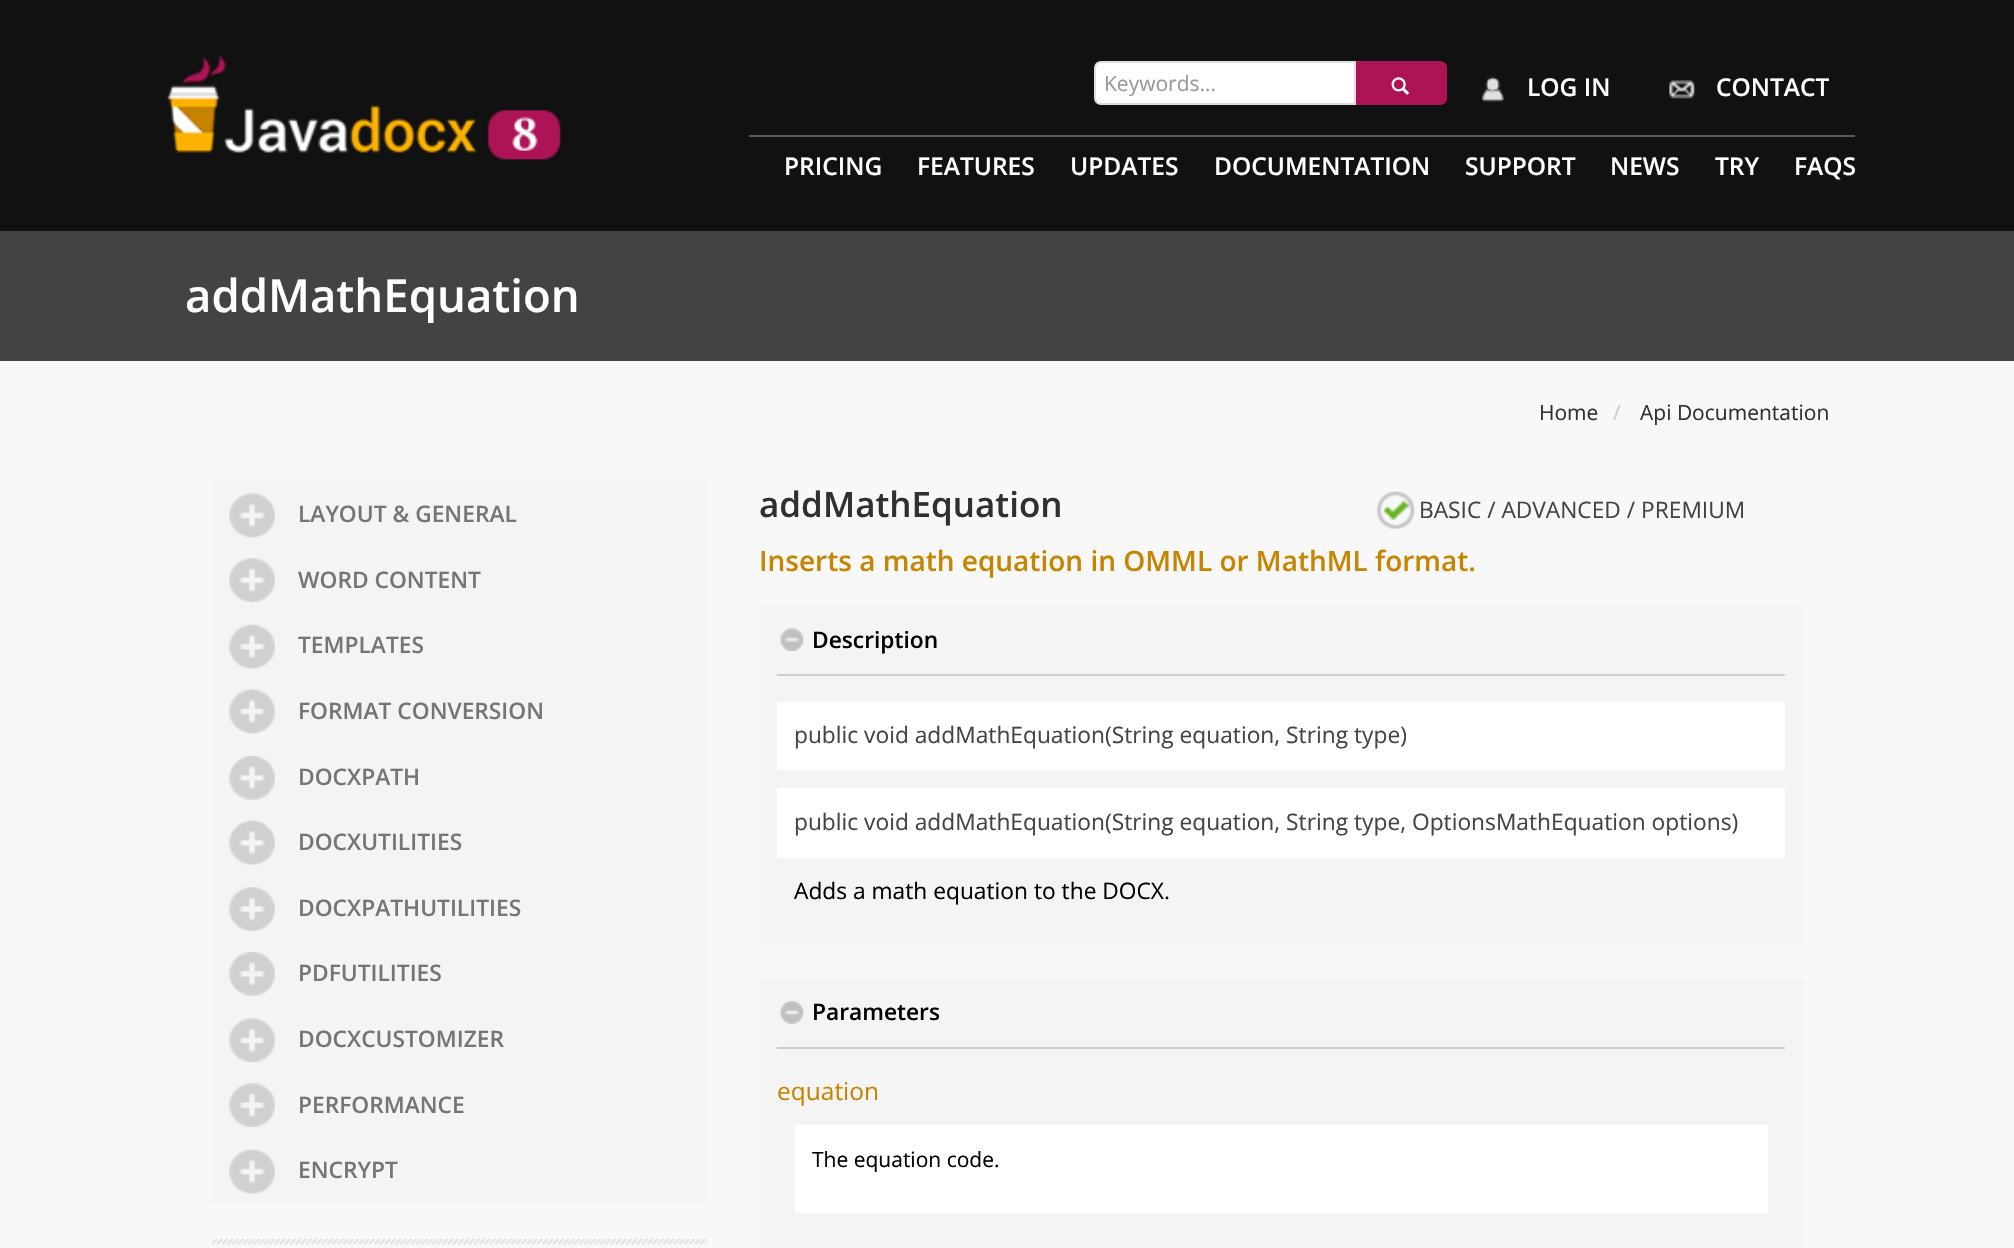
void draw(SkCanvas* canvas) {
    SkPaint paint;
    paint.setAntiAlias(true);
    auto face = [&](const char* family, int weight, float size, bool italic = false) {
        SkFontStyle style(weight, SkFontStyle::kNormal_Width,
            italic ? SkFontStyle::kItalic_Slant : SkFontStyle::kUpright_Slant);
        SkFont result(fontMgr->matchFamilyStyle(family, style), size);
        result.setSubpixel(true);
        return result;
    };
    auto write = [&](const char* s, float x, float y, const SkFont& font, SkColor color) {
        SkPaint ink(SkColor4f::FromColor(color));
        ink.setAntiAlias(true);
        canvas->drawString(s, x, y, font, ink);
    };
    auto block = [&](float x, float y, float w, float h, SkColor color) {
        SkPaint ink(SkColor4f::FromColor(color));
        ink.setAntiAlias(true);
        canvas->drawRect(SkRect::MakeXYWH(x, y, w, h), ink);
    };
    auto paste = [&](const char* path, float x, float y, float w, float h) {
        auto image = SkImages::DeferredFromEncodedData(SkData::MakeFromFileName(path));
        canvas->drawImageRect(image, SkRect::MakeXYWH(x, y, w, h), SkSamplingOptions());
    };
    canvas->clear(SkColorSetRGB(248, 248, 248));
    block(0, 0, 2014, 231, SkColorSetRGB(17, 17, 17));
    paste("pic1.png", 167, 55, 394, 105);
    paint.setColor(SK_ColorWHITE);
    canvas->drawPath(SkPathBuilder().moveTo(1101, 62).lineTo(1355, 62).lineTo(1355, 104).lineTo(1101, 104).cubicTo(1097.5f, 104, 1095, 101.5f, 1095, 98).lineTo(1095, 68).cubicTo(1095, 64.5f, 1097.5f, 62, 1101, 62).close().detach(), paint);
    paint.setStyle(SkPaint::kStroke_Style);
    paint.setStrokeWidth(2);
    paint.setColor(SkColorSetRGB(222, 222, 222));
    canvas->drawPath(SkPathBuilder().moveTo(1101, 62).lineTo(1355, 62).lineTo(1355, 104).lineTo(1101, 104).cubicTo(1097.5f, 104, 1095, 101.5f, 1095, 98).lineTo(1095, 68).cubicTo(1095, 64.5f, 1097.5f, 62, 1101, 62).close().detach(), paint);
    auto kFont1 = face("Open Sans", 400, 21);
    write("Keywords...", 1104, 91, kFont1, SkColorSetRGB(153, 153, 153));
    paint.setStyle(SkPaint::kFill_Style);
    paint.setColor(SkColorSetRGB(173, 20, 87));
    canvas->drawPath(SkPathBuilder().moveTo(1356, 61).lineTo(1440, 61).cubicTo(1444, 61, 1447, 64, 1447, 68).lineTo(1447, 98).cubicTo(1447, 102, 1444, 105, 1440, 105).lineTo(1356, 105).close().detach(), paint);
    paste("pic2.png", 1391, 77, 18, 18);
    paste("pic3.png", 1481, 76, 23, 26);
    auto kFont2 = face("Open Sans", 600, 24.5f);
    write("LOG IN", 1527, 96, kFont2, SK_ColorWHITE);
    paste("pic4.png", 1669, 80, 26, 19);
    write("CONTACT", 1716, 96, kFont2, SK_ColorWHITE);
    block(749, 135, 1106, 2, SkColorSetRGB(90, 90, 90));
    write("PRICING", 784, 175, kFont2, SK_ColorWHITE);
    write("FEATURES", 917, 175, kFont2, SK_ColorWHITE);
    write("UPDATES", 1070, 175, kFont2, SK_ColorWHITE);
    write("DOCUMENTATION", 1214, 175, kFont2, SK_ColorWHITE);
    write("SUPPORT", 1465, 175, kFont2, SK_ColorWHITE);
    write("NEWS", 1610, 175, kFont2, SK_ColorWHITE);
    write("TRY", 1715, 175, kFont2, SK_ColorWHITE);
    write("FAQS", 1794, 175, kFont2, SK_ColorWHITE);
    block(0, 231, 2014, 130, SkColorSetRGB(67, 67, 67));
    auto kFont3 = face("Open Sans", 600, 45.5f);
    write("addMathEquation", 185, 312, kFont3, SK_ColorWHITE);
    write("Home", 1539, 420, kFont1, SkColorSetRGB(48, 48, 48));
    write("/", 1613, 420, kFont1, SkColorSetRGB(204, 204, 204));
    write("Api Documentation", 1640, 420, kFont1, SkColorSetRGB(48, 48, 48));
    block(212, 481, 495, 723, SkColorSetRGB(244, 244, 244));
    paste("pic5.png", 229, 493, 46, 45);
    auto kFont4 = face("Open Sans", 600, 22.75f);
    write("LAYOUT & GENERAL", 298, 522, kFont4, SkColorSetRGB(117, 117, 117));
    paste("pic6.png", 229, 558, 46, 44);
    write("WORD CONTENT", 298, 588, kFont4, SkColorSetRGB(117, 117, 117));
    paste("pic7.png", 229, 624, 46, 45);
    write("TEMPLATES", 298, 653, kFont4, SkColorSetRGB(117, 117, 117));
    paste("pic5.png", 229, 689, 46, 45);
    write("FORMAT CONVERSION", 298, 719, kFont4, SkColorSetRGB(117, 117, 117));
    paste("pic8.png", 229, 756, 46, 44);
    write("DOCXPATH", 298, 785, kFont4, SkColorSetRGB(117, 117, 117));
    paste("pic7.png", 229, 820, 46, 45);
    write("DOCXUTILITIES", 298, 850, kFont4, SkColorSetRGB(117, 117, 117));
    paste("pic6.png", 229, 887, 46, 44);
    write("DOCXPATHUTILITIES", 298, 916, kFont4, SkColorSetRGB(117, 117, 117));
    paste("pic8.png", 229, 952, 46, 44);
    write("PDFUTILITIES", 298, 981, kFont4, SkColorSetRGB(117, 117, 117));
    paste("pic5.png", 229, 1018, 46, 45);
    write("DOCXCUSTOMIZER", 298, 1047, kFont4, SkColorSetRGB(117, 117, 117));
    paste("pic6.png", 229, 1083, 46, 44);
    write("PERFORMANCE", 298, 1113, kFont4, SkColorSetRGB(117, 117, 117));
    paste("pic7.png", 229, 1149, 46, 45);
    write("ENCRYPT", 298, 1178, kFont4, SkColorSetRGB(117, 117, 117));
    paste("pic9.png", 211, 1239, 496, 6);
    auto kFont5 = face("Open Sans", 600, 35);
    write("addMathEquation", 759, 517, kFont5, SkColorSetRGB(48, 48, 48));
    paste("pic10.png", 1377, 491, 38, 38);
    auto kFont6 = face("Open Sans", 400, 22.75f);
    write("BASIC / ADVANCED / PREMIUM", 1419, 518, kFont6, SkColorSetRGB(68, 68, 68));
    auto kFont7 = face("Open Sans", 600, 28);
    write("Inserts a math equation in OMML or MathML format.", 759, 571, kFont7, SkColorSetRGB(198, 132, 0));
    block(760, 606, 1043, 337, SkColorSetRGB(244, 244, 244));
    block(777, 674, 1008, 2, SkColorSetRGB(205, 205, 205));
    paste("pic11.png", 780, 628, 24, 23);
    write("Description", 812, 648, kFont4, SK_ColorBLACK);
    block(777, 702, 1008, 68, SK_ColorWHITE);
    write("public void addMathEquation(String equation, String type)", 794, 743, kFont6, SkColorSetRGB(68, 68, 68));
    block(777, 788, 1008, 70, SK_ColorWHITE);
    write("public void addMathEquation(String equation, String type, OptionsMathEquation options)", 794, 830, kFont6, SkColorSetRGB(68, 68, 68));
    write("Adds a math equation to the DOCX.", 794, 899, kFont6, SK_ColorBLACK);
    block(760, 978, 1043, 270, SkColorSetRGB(244, 244, 244));
    block(777, 1047, 1008, 2, SkColorSetRGB(205, 205, 205));
    paste("pic12.png", 780, 1001, 24, 23);
    write("Parameters", 812, 1020, kFont4, SK_ColorBLACK);
    auto kFont8 = face("Open Sans", 400, 24.5f);
    write("equation", 777, 1100, kFont8, SkColorSetRGB(198, 132, 0));
    block(795, 1125, 973, 88, SK_ColorWHITE);
    write("The equation code.", 812, 1167, kFont1, SK_ColorBLACK);
}
